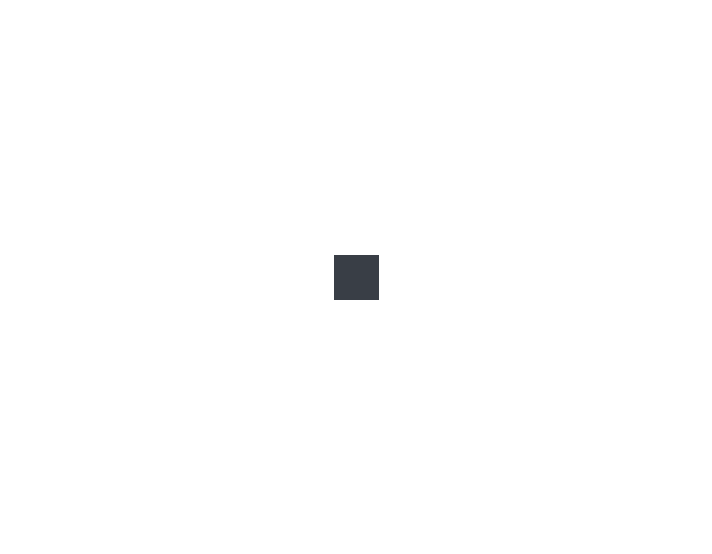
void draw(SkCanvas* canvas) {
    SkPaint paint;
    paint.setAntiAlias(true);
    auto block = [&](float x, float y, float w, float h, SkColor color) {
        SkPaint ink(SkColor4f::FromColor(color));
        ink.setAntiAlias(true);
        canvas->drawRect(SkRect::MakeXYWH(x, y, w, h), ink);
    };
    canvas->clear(SK_ColorWHITE);
    block(334, 255, 45, 45, SkColorSetRGB(57, 62, 70));
}
